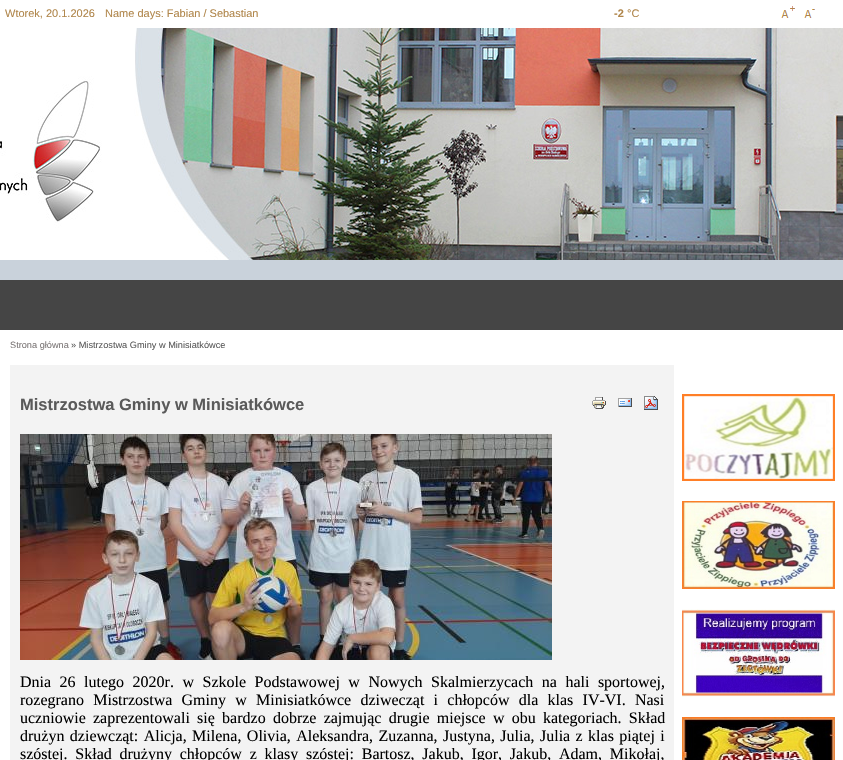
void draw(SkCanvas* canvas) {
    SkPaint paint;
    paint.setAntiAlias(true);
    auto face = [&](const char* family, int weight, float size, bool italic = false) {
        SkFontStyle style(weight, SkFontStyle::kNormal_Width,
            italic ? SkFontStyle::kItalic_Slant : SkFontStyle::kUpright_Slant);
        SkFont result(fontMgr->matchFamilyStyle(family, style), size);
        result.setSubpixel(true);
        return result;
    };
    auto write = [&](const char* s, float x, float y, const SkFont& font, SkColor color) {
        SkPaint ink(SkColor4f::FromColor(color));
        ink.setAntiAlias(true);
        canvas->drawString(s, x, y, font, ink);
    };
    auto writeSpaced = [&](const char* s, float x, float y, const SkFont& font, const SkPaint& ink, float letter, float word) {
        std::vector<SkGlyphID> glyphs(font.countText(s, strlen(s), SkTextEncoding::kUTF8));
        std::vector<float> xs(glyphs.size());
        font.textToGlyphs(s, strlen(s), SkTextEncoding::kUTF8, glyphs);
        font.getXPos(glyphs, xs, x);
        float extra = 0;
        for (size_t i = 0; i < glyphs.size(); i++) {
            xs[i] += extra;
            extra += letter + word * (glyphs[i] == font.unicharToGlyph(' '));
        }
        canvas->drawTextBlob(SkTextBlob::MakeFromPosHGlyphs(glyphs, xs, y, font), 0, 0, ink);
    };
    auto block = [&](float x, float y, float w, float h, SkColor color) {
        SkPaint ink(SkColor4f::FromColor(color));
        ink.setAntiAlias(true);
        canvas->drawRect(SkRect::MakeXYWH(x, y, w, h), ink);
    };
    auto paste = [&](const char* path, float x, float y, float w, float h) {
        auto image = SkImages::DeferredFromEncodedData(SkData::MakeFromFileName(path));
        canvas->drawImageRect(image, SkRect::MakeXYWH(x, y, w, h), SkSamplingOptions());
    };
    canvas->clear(SkColorSetRGB(201, 210, 219));
    block(0, 0, 843, 28, SK_ColorWHITE);
    auto kFont1 = face("Liberation Sans", 400, 11);
    write("Wtorek, 20.1.2026", 5, 17, kFont1, SkColorSetRGB(176, 134, 75));
    write("Name days: Fabian / Sebastian", 105, 17, kFont1, SkColorSetRGB(176, 134, 75));
    auto kFont2 = face("Liberation Sans", 700, 11);
    write("-2", 614, 17, kFont2, SkColorSetRGB(176, 134, 75));
    write("°C", 627, 17, kFont1, SkColorSetRGB(176, 134, 75));
    paste("pic1.png", 781, 6, 14, 12);
    paste("pic2.png", 804, 9, 11, 9);
    paste("pic3.png", 0, 28, 843, 232);
    block(0, 330, 843, 430, SK_ColorWHITE);
    block(0, 280, 843, 50, SkColorSetRGB(69, 69, 69));
    auto kFont3 = face("Liberation Sans", 400, 9.2f);
    write("Strona główna", 10, 348, kFont3, SkColorSetRGB(124, 119, 119));
    write("» Mistrzostwa Gminy w Minisiatkówce", 71, 348, kFont3, SkColorSetRGB(90, 90, 90));
    block(10, 365, 664, 395, SkColorSetRGB(243, 243, 243));
    auto kFont4 = face("Liberation Sans", 700, 16.5f);
    write("Mistrzostwa Gminy w Minisiatkówce", 20, 410, kFont4, SkColorSetRGB(90, 90, 90));
    paste("pic4.png", 592, 397, 14, 12);
    paste("pic5.png", 618, 398, 14, 9);
    paste("pic6.png", 644, 396, 14, 14);
    paste("pic7.png", 20, 434, 532, 226);
    auto kFont5 = face("Liberation Serif", 400, 16);
    paint.setColor(SK_ColorBLACK);
    writeSpaced("Dnia 26 lutego 2020r. w Szkole Podstawowej w Nowych Skalmierzycach na hali sportowej,", 20, 687, kFont5, paint, 0, 4.5f);
    writeSpaced("rozegrano Mistrzostwa Gminy w Minisiatkówce dziwecząt i chłopców dla klas IV-VI. Nasi", 20, 705, kFont5, paint, 0, 5.25f);
    writeSpaced("uczniowie zaprezentowali się bardzo dobrze zajmując drugie miejsce w obu kategoriach. Skład", 20, 723, kFont5, paint, 0, 3.25f);
    writeSpaced("drużyn dziewcząt: Alicja, Milena, Olivia, Aleksandra, Zuzanna, Justyna, Julia, Julia z klas piątej i", 20, 741, kFont5, paint, 0, 1.4f);
    writeSpaced("szóstej. Skład drużyny chłopców z klasy szóstej: Bartosz, Jakub, Igor, Jakub, Adam, Mikołaj,", 20, 759, kFont5, paint, 0, 3.75f);
    paste("pic8.png", 682, 394, 153, 87);
    paste("pic9.png", 682, 501, 153, 88);
    paste("pic10.png", 682, 609, 153, 88);
    paste("pic11.png", 682, 717, 153, 43);
}
